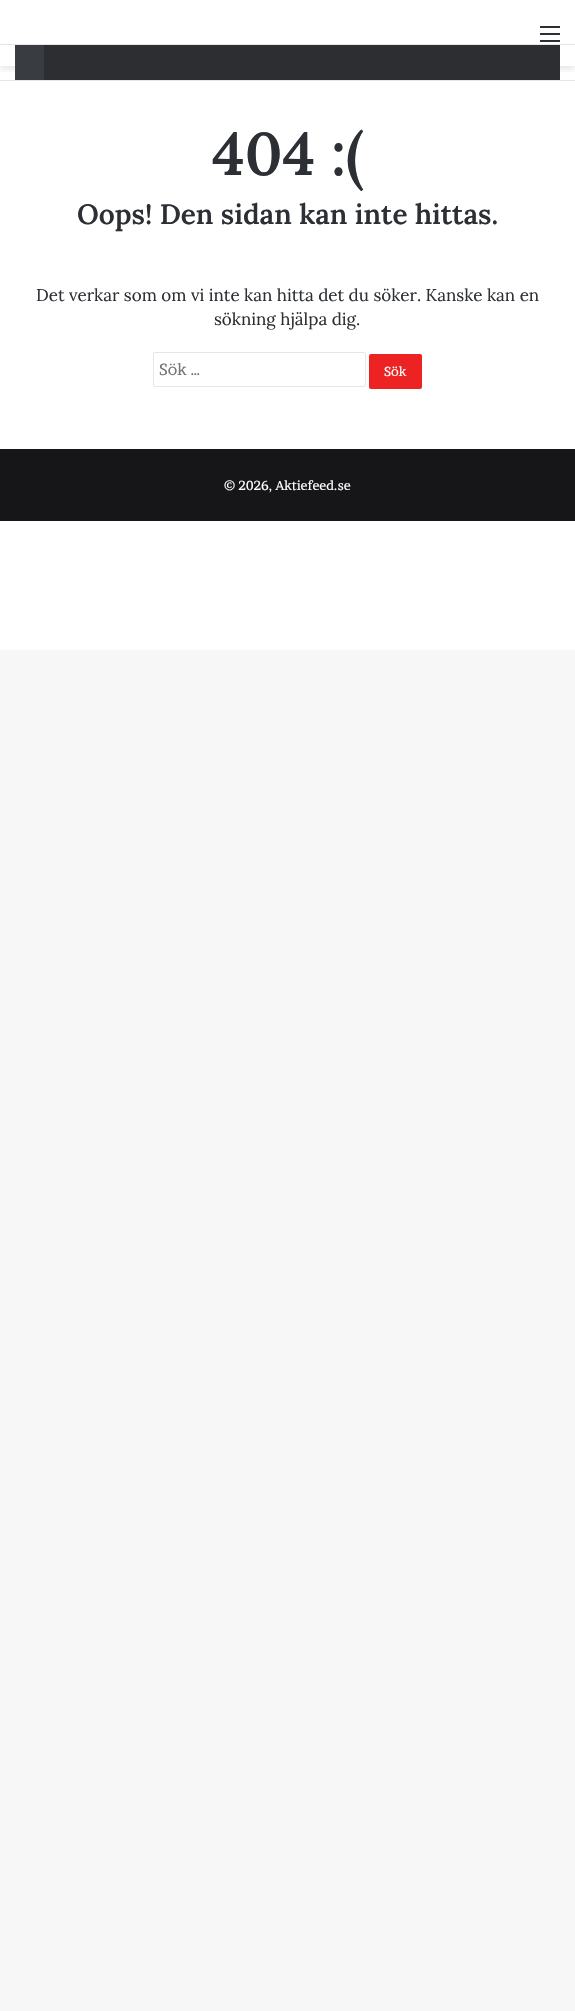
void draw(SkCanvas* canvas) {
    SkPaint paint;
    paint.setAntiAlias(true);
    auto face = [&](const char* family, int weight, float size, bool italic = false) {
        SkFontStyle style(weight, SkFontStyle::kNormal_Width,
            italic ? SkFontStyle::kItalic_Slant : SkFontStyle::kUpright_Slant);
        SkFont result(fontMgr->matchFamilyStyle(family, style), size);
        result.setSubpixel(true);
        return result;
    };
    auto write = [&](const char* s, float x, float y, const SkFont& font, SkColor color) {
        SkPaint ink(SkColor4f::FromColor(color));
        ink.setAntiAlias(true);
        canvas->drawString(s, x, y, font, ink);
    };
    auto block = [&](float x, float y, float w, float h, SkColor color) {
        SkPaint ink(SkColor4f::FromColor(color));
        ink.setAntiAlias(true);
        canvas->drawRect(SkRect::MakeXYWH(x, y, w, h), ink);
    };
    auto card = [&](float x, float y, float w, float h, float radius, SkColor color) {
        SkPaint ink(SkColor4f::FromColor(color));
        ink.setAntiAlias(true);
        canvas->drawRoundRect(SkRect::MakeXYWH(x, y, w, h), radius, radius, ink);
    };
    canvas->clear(SkColorSetRGB(247, 247, 247));
    block(0, 0, 575, 650, SK_ColorWHITE);
    canvas->save();
    canvas->clipRect(SkRect::MakeXYWH(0, 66, 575, 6));
    paint.setColor(SkColorSetARGB(26, 0, 0, 0));
    paint.setMaskFilter(SkMaskFilter::MakeBlur(kNormal_SkBlurStyle, 3.5f));
    canvas->drawRect(SkRect::MakeXYWH(0, 3, 575, 66), paint);
    paint.setMaskFilter(nullptr);
    canvas->restore();
    block(540, 33, 20, 2, SkColorSetRGB(44, 47, 52));
    block(540, 26, 20, 2, SkColorSetRGB(44, 47, 52));
    block(540, 40, 20, 2, SkColorSetRGB(44, 47, 52));
    block(0, 44, 575, 1, SkColorSetRGB(230, 230, 230));
    block(0, 80, 575, 1, SkColorSetRGB(229, 229, 229));
    block(44, 45, 516, 35, SkColorSetRGB(44, 46, 50));
    block(15, 45, 29, 35, SkColorSetRGB(57, 60, 65));
    auto kFont1 = face("Lora", 600, 60);
    write("404 :(", 212, 175, kFont1, SkColorSetRGB(44, 47, 52));
    auto kFont2 = face("Lora", 600, 28);
    write("Oops! Den sidan kan inte hittas.", 77, 224, kFont2, SkColorSetRGB(44, 47, 52));
    auto kFont3 = face("Lora", 400, 17);
    write("Det verkar som om vi inte kan hitta det du söker. Kanske kan en", 36, 301, kFont3, SkColorSetRGB(44, 47, 52));
    write("sökning hjälpa dig.", 214, 325, kFont3, SkColorSetRGB(44, 47, 52));
    paint.setStyle(SkPaint::kStroke_Style);
    paint.setStrokeWidth(1);
    paint.setColor(SkColorSetRGB(230, 230, 230));
    canvas->drawRoundRect(SkRect::MakeXYWH(153.5f, 352.5f, 212, 34), 1.5f, 1.5f, paint);
    auto kFont4 = face("Brawler", 400, 16);
    write("Sök …", 159, 375, kFont4, SkColorSetRGB(117, 117, 117));
    card(369, 354, 53, 35, 2, SkColorSetRGB(236, 34, 35));
    auto kFont5 = face("Brawler", 400, 13);
    write("Sök", 384, 376, kFont5, SK_ColorWHITE);
    block(0, 449, 575, 72, SkColorSetRGB(22, 22, 25));
    write("© 2026, Aktiefeed.se", 224, 490, kFont5, SK_ColorWHITE);
}
